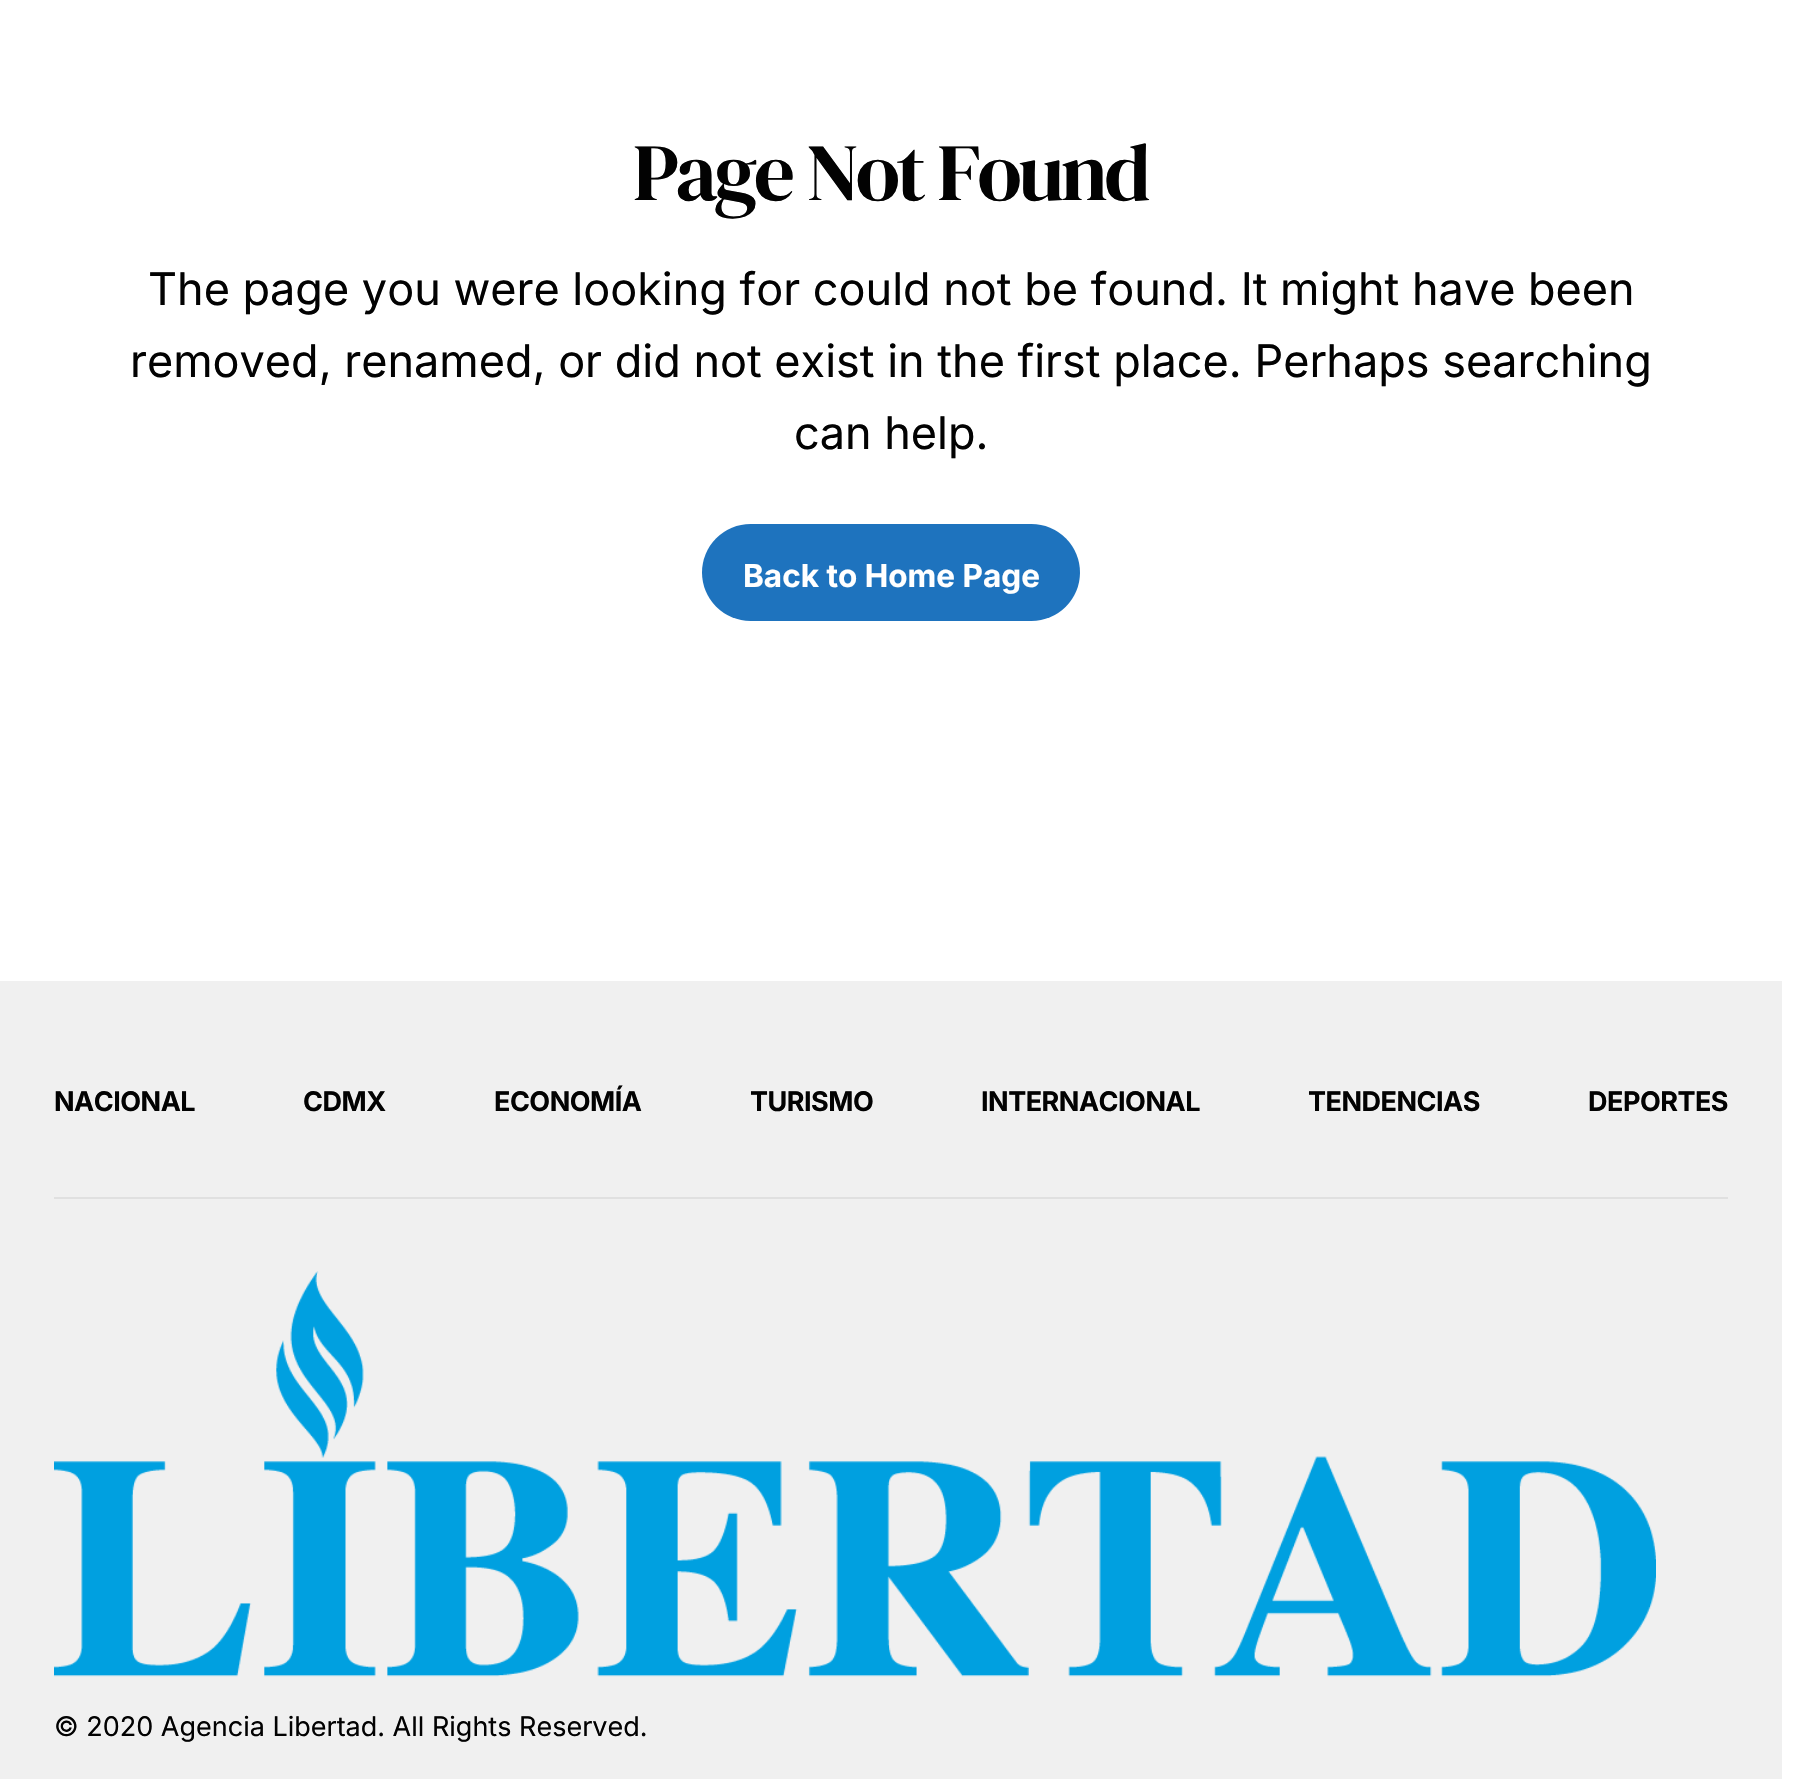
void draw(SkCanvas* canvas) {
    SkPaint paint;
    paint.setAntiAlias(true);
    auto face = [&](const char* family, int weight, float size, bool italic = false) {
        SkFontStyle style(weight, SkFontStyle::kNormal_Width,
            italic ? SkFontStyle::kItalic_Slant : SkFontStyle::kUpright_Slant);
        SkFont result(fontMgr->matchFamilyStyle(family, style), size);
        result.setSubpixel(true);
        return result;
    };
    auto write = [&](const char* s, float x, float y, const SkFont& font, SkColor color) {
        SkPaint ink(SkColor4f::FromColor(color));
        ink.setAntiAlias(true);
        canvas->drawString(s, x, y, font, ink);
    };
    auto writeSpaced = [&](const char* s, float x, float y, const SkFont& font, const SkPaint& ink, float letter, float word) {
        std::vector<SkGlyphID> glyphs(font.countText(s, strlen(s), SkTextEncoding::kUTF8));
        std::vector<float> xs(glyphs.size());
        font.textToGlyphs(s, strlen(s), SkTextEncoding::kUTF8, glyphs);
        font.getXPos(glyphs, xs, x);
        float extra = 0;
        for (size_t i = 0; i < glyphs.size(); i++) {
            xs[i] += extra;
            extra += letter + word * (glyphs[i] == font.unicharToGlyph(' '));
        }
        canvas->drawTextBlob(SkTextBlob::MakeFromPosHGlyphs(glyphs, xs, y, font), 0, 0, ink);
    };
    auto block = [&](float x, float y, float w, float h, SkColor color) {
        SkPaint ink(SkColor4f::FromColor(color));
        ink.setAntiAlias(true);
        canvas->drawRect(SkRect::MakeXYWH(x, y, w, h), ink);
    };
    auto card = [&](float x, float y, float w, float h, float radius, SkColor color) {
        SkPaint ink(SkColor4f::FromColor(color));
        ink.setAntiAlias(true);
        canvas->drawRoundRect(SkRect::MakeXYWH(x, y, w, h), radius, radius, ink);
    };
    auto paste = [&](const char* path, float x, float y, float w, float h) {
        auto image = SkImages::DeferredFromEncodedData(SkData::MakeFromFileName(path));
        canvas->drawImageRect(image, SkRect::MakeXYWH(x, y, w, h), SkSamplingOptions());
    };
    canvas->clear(SK_ColorWHITE);
    auto kFont1 = face("DM Serif Display", 400, 81);
    paint.setColor(SkColorSetRGB(2, 2, 2));
    writeSpaced("Page Not Found", 633, 200, kFont1, paint, -3.25f, 0);
    auto kFont2 = face("Inter", 400, 45);
    write("The page you were looking for could not be found. It might have been", 148, 305, kFont2, SkColorSetRGB(2, 2, 2));
    write("removed, renamed, or did not exist in the first place. Perhaps searching", 130, 377, kFont2, SkColorSetRGB(2, 2, 2));
    write("can help.", 794, 449, kFont2, SkColorSetRGB(2, 2, 2));
    card(702, 524, 378, 97, 48.5f, SkColorSetRGB(30, 115, 190));
    auto kFont3 = face("Inter", 700, 31.5f);
    write("Back to Home Page", 743, 587, kFont3, SK_ColorWHITE);
    block(0, 981, 1782, 798, SkColorSetRGB(240, 240, 240));
    block(54, 1197, 1674, 2, SkColorSetRGB(224, 224, 224));
    auto kFont4 = face("Inter", 700, 27);
    writeSpaced("NACIONAL", 54, 1111, kFont4, paint, -0.5f, 0);
    writeSpaced("CDMX", 303, 1111, kFont4, paint, -0.5f, 0);
    writeSpaced("ECONOMÍA", 494, 1111, kFont4, paint, -0.5f, 0);
    writeSpaced("TURISMO", 750, 1111, kFont4, paint, -0.5f, 0);
    writeSpaced("INTERNACIONAL", 981, 1111, kFont4, paint, -0.5f, 0);
    writeSpaced("TENDENCIAS", 1308, 1111, kFont4, paint, -0.5f, 0);
    writeSpaced("DEPORTES", 1588, 1111, kFont4, paint, -0.5f, 0);
    paste("pic1.png", 54, 1271, 1602, 406);
    auto kFont5 = face("Inter", 400, 27);
    write("© 2020 Agencia Libertad. All Rights Reserved.", 54, 1736, kFont5, SkColorSetRGB(2, 2, 2));
}
